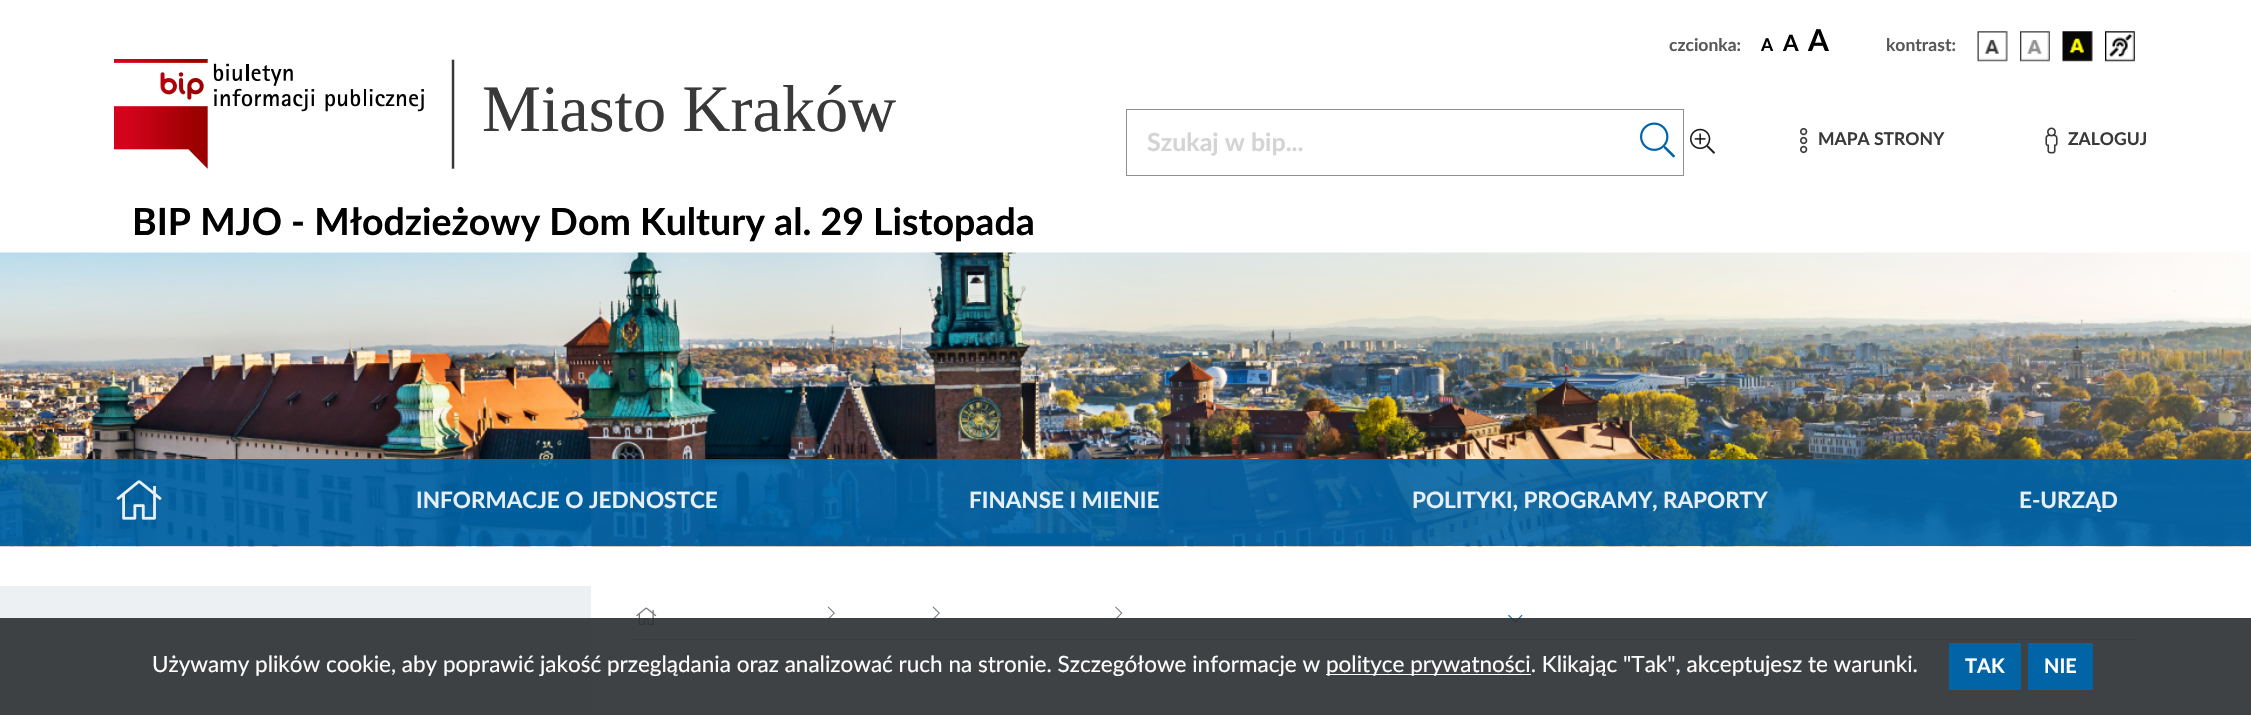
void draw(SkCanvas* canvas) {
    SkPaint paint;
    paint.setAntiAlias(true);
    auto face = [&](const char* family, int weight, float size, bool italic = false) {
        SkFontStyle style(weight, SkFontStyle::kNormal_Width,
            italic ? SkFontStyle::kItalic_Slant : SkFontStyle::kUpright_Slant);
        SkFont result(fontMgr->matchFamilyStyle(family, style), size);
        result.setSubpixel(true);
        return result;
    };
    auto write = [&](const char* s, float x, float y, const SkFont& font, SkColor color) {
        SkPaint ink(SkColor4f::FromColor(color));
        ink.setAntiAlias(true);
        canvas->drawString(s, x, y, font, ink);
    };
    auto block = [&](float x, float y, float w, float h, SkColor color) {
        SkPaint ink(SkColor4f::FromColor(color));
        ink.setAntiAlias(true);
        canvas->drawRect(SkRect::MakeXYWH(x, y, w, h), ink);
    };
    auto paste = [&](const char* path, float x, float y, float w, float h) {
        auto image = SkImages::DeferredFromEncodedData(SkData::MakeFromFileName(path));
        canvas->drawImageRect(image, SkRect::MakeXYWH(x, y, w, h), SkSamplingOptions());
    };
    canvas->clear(SK_ColorWHITE);
    auto kFont1 = face("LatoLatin", 700, 17.5f);
    write("czcionka:", 1669, 51, kFont1, SkColorSetRGB(88, 88, 88));
    write("A", 1761, 51, kFont1, SK_ColorBLACK);
    auto kFont2 = face("LatoLatin", 700, 22.5f);
    write("A", 1783, 51, kFont2, SK_ColorBLACK);
    auto kFont3 = face("LatoLatin", 700, 30);
    write("A", 1808, 51, kFont3, SK_ColorBLACK);
    write("kontrast:", 1886, 51, kFont1, SkColorSetRGB(88, 88, 88));
    paste("pic1.png", 1977, 31, 31, 31);
    paste("pic2.png", 2020, 31, 30, 31);
    paste("pic3.png", 2062, 31, 31, 31);
    paste("pic4.png", 2105, 31, 30, 31);
    paste("pic5.png", 114, 59, 341, 110);
    auto kFont4 = face("Liberation Serif", 400, 66.25f);
    write("Miasto Kraków", 482, 131, kFont4, SkColorSetRGB(57, 57, 57));
    block(1126, 109, 558, 1, SkColorSetRGB(144, 144, 144));
    block(1683, 109, 1, 67, SkColorSetRGB(144, 144, 144));
    block(1126, 175, 558, 1, SkColorSetRGB(144, 144, 144));
    paste("pic6.png", 1640, 122, 35, 36);
    block(1126, 109, 1, 67, SkColorSetRGB(144, 144, 144));
    auto kFont5 = face("LatoLatin", 700, 25);
    write("Szukaj w bip...", 1147, 151, kFont5, SkColorSetRGB(212, 212, 212));
    paste("pic7.png", 1690, 128, 25, 26);
    paste("pic8.png", 1800, 127, 8, 27);
    write("MAPA STRONY", 1818, 145, kFont1, SkColorSetRGB(57, 57, 57));
    paste("pic9.png", 2045, 127, 13, 27);
    write("ZALOGUJ", 2068, 145, kFont1, SkColorSetRGB(57, 57, 57));
    auto kFont6 = face("LatoLatin", 700, 37.5f);
    write("BIP MJO - Młodzieżowy Dom Kultury al. 29 Listopada", 132, 235, kFont6, SK_ColorBLACK);
    paste("pic10.png", 0, 252, 2251, 295);
    block(0, 459, 2251, 87, SkColorSetARGB(230, 0, 100, 167));
    paste("pic11.png", 116, 480, 46, 40);
    write("INFORMACJE O JEDNOSTCE", 416, 508, kFont2, SkColorSetRGB(230, 239, 245));
    write("FINANSE I MIENIE", 969, 508, kFont2, SkColorSetRGB(230, 239, 245));
    write("POLITYKI, PROGRAMY, RAPORTY", 1412, 508, kFont2, SkColorSetRGB(230, 239, 245));
    write("E-URZĄD", 2019, 508, kFont2, SkColorSetRGB(230, 239, 245));
    block(0, 586, 591, 129, SkColorSetRGB(236, 240, 243));
    block(631, 639, 1505, 1, SkColorSetRGB(212, 212, 212));
    paste("pic12.png", 636, 607, 21, 18);
    paste("pic13.png", 827, 606, 8, 14);
    paste("pic13.png", 932, 606, 8, 14);
    paste("pic14.png", 1115, 606, 8, 14);
    paste("pic15.png", 1508, 614, 15, 9);
    block(0, 618, 2251, 97, SkColorSetARGB(230, 42, 46, 49));
    auto kFont7 = face("LatoLatin", 400, 22.5f);
    write("Używamy plików cookie, aby poprawić jakość przeglądania oraz analizować ruch na stronie. Szczegółowe informacje w", 152, 672, kFont7, SK_ColorWHITE);
    block(1326, 674, 205, 1, SK_ColorWHITE);
    write("polityce prywatności. Klikając \"Tak\", akceptujesz te warunki.", 1326, 672, kFont7, SK_ColorWHITE);
    block(1949, 643, 72, 47, SkColorSetRGB(0, 100, 167));
    auto kFont8 = face("LatoLatin", 700, 20);
    write("TAK", 1965, 673, kFont8, SK_ColorWHITE);
    block(2028, 643, 65, 47, SkColorSetRGB(0, 100, 167));
    write("NIE", 2044, 673, kFont8, SK_ColorWHITE);
}
